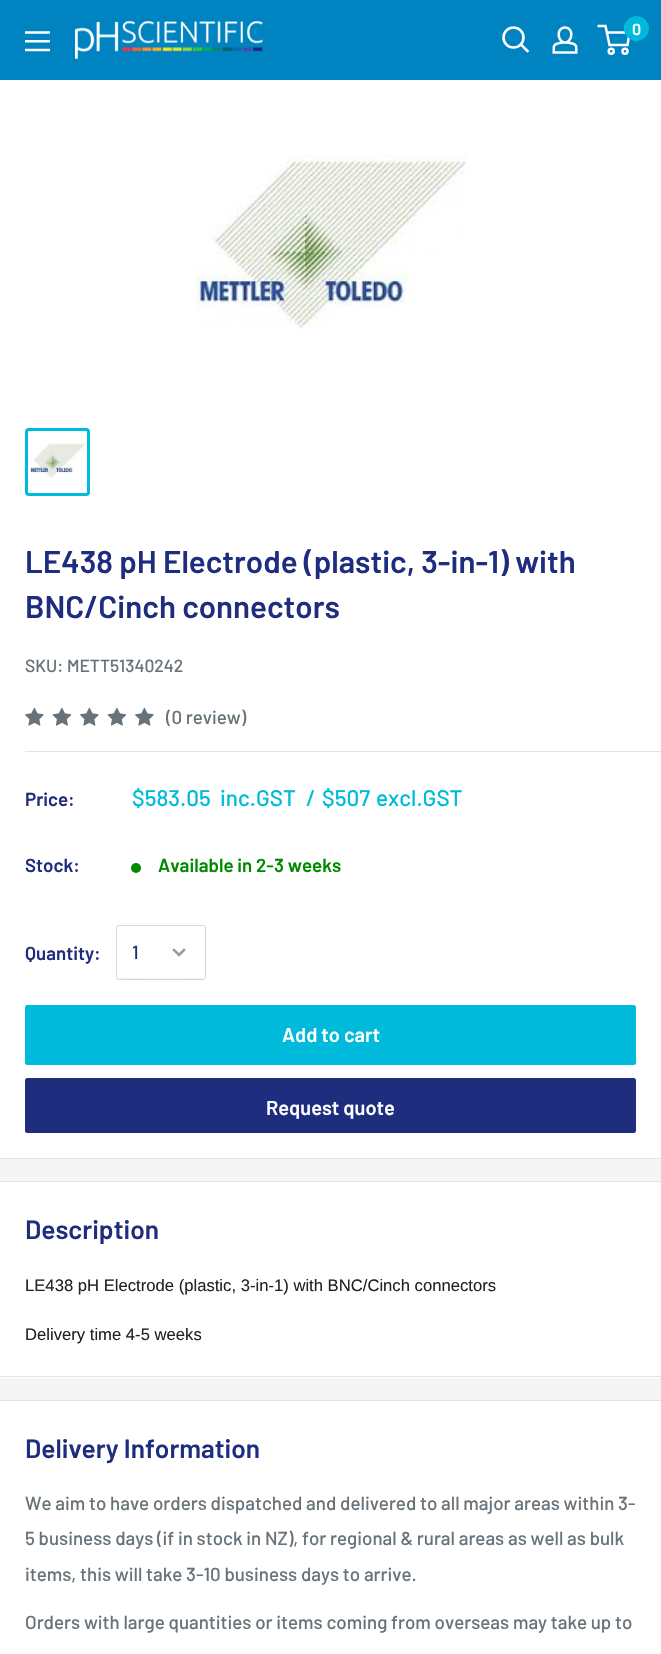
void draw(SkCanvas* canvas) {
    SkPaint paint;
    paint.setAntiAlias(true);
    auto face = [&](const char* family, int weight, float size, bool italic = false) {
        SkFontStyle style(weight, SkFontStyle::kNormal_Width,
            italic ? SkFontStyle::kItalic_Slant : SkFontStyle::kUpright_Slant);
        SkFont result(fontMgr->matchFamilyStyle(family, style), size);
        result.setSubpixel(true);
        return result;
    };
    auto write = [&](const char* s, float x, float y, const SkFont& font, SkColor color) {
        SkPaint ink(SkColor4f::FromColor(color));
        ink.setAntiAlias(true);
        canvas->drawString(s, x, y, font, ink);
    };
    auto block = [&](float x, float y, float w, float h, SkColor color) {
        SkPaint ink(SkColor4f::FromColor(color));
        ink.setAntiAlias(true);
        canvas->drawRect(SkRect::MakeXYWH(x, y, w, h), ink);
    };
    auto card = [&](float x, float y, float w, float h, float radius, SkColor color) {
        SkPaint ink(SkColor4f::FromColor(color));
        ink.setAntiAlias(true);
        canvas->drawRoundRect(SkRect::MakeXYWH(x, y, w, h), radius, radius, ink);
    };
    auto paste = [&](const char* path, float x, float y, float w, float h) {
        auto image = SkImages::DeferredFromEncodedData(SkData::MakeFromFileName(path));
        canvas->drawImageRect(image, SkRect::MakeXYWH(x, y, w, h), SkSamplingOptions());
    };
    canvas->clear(SkColorSetRGB(243, 245, 246));
    block(0, 0, 661, 80, SkColorSetRGB(0, 131, 193));
    paste("pic1.png", 75, 21, 188, 38);
    paint.setStyle(SkPaint::kStroke_Style);
    paint.setStrokeWidth(2.6f);
    paint.setStrokeCap(SkPaint::kSquare_Cap);
    paint.setColor(SK_ColorWHITE);
    canvas->drawPath(SkPathBuilder().moveTo(527.5f, 51).lineTo(521, 44.5f).detach(), paint);
    paint.setStrokeCap(SkPaint::kButt_Cap);
    canvas->drawCircle(513.5f, 37.5f, 10, paint);
    paste("pic2.png", 552, 26, 26, 28);
    paint.setStrokeWidth(2.5f);
    canvas->drawCircle(611.2f, 51.2f, 2.5f, paint);
    canvas->drawCircle(625, 51.2f, 2.5f, paint);
    canvas->drawPath(SkPathBuilder().moveTo(606.5f, 32.5f).lineTo(629.5f, 32.5f).lineTo(627.5f, 45).lineTo(609.5f, 45).lineTo(605.5f, 26).lineTo(597.5f, 26).detach(), paint);
    paint.setStyle(SkPaint::kFill_Style);
    paint.setColor(SkColorSetRGB(0, 186, 219));
    canvas->drawCircle(636.5f, 28.5f, 12.5f, paint);
    auto kFont1 = face("Barlow", 600, 16);
    write("0", 632, 35, kFont1, SK_ColorWHITE);
    paste("pic3.png", 25, 31, 25, 21);
    block(0, 80, 661, 1078, SK_ColorWHITE);
    paste("pic4.png", 196, 155, 270, 175);
    paint.setStyle(SkPaint::kStroke_Style);
    paint.setStrokeWidth(3);
    canvas->drawRoundRect(SkRect::MakeXYWH(26.5f, 429.5f, 62, 65), 2.5f, 2.5f, paint);
    paste("pic5.png", 30, 443, 55, 35);
    block(0, 1158, 661, 1, SkColorSetRGB(225, 227, 228));
    auto kFont2 = face("Barlow", 600, 31.25f);
    write("LE438 pH Electrode (plastic, 3-in-1) with", 25, 573, kFont2, SkColorSetRGB(30, 45, 125));
    write("BNC/Cinch connectors", 25, 618, kFont2, SkColorSetRGB(30, 45, 125));
    auto kFont3 = face("Barlow", 500, 17.5f);
    write("SKU: METT51340242", 25, 672, kFont3, SkColorSetRGB(103, 114, 121));
    paste("pic6.png", 25, 707, 19, 19);
    paste("pic7.png", 52, 707, 20, 19);
    paste("pic6.png", 80, 707, 19, 19);
    paste("pic7.png", 107, 707, 20, 19);
    paste("pic6.png", 135, 707, 19, 19);
    auto kFont4 = face("Barlow", 500, 18.75f);
    write("(0 review)", 166, 724, kFont4, SkColorSetRGB(103, 114, 121));
    block(25, 751, 636, 1, SkColorSetRGB(225, 227, 228));
    auto kFont5 = face("Barlow", 600, 18.75f);
    write("Price:", 25, 806, kFont5, SkColorSetRGB(30, 45, 125));
    auto kFont6 = face("Barlow", 500, 22.5f);
    write("$583.05", 132, 806, kFont6, SkColorSetRGB(0, 186, 219));
    write("inc.GST", 220, 806, kFont6, SkColorSetRGB(0, 186, 219));
    write("/", 306, 806, kFont6, SkColorSetRGB(0, 186, 219));
    write("$507", 322, 806, kFont6, SkColorSetRGB(0, 186, 219));
    write("excl.GST", 376, 806, kFont6, SkColorSetRGB(0, 186, 219));
    write("Stock:", 25, 872, kFont5, SkColorSetRGB(30, 45, 125));
    paint.setStyle(SkPaint::kFill_Style);
    paint.setColor(SkColorSetRGB(0, 138, 0));
    canvas->drawCircle(136, 868, 5, paint);
    write("Available in 2-3 weeks", 158, 872, kFont5, SkColorSetRGB(0, 138, 0));
    write("Quantity:", 25, 960, kFont5, SkColorSetRGB(30, 45, 125));
    paint.setColor(SkColorSetRGB(242, 243, 243));
    canvas->drawPath(SkPathBuilder().moveTo(118, 977).lineTo(118, 979).lineTo(190, 979).cubicTo(192, 979, 205, 983, 205, 977).lineTo(204, 978).cubicTo(196, 978, 120, 979, 118, 977).close().detach(), paint);
    paint.setStyle(SkPaint::kStroke_Style);
    paint.setStrokeWidth(1);
    paint.setColor(SkColorSetRGB(212, 214, 216));
    canvas->drawRoundRect(SkRect::MakeXYWH(116.5f, 925.5f, 89, 54), 2, 2, paint);
    write("1", 132, 959, kFont4, SkColorSetRGB(30, 45, 125));
    paint.setStrokeWidth(2.5f);
    paint.setStrokeCap(SkPaint::kSquare_Cap);
    paint.setColor(SkColorSetRGB(149, 156, 161));
    canvas->drawPath(SkPathBuilder().moveTo(184, 950).lineTo(179, 955).lineTo(174, 950).detach(), paint);
    card(25, 1005, 611, 60, 2.5f, SkColorSetRGB(0, 186, 219));
    auto kFont7 = face("Barlow", 600, 20);
    write("Add to cart", 282, 1042, kFont7, SK_ColorWHITE);
    card(25, 1078, 611, 55, 2.5f, SkColorSetRGB(30, 45, 125));
    write("Request quote", 266, 1115, kFont7, SK_ColorWHITE);
    block(0, 1182, 661, 196, SK_ColorWHITE);
    block(0, 1181, 661, 1, SkColorSetRGB(225, 227, 228));
    block(0, 1376, 661, 1, SkColorSetRGB(225, 227, 228));
    auto kFont8 = face("Barlow", 600, 26.25f);
    write("Description", 25, 1239, kFont8, SkColorSetRGB(30, 45, 125));
    auto kFont9 = face("Liberation Sans", 400, 16.65f);
    write("LE438 pH Electrode (plastic, 3-in-1) with BNC/Cinch connectors", 25, 1291, kFont9, SkColorSetRGB(34, 34, 34));
    write("Delivery time 4-5 weeks", 25, 1340, kFont9, SkColorSetRGB(34, 34, 34));
    block(0, 1401, 661, 253, SK_ColorWHITE);
    block(0, 1400, 661, 1, SkColorSetRGB(225, 227, 228));
    write("Delivery Information", 25, 1458, kFont8, SkColorSetRGB(30, 45, 125));
    write("We aim to have orders dispatched and delivered to all major areas within 3-", 25, 1510, kFont4, SkColorSetRGB(103, 114, 121));
    write("5 business days (if in stock in NZ), for regional & rural areas as well as bulk", 25, 1545, kFont4, SkColorSetRGB(103, 114, 121));
    write("items, this will take 3-10 business days to arrive.", 25, 1581, kFont4, SkColorSetRGB(103, 114, 121));
    write("Orders with large quantities or items coming from overseas may take up to", 25, 1629, kFont4, SkColorSetRGB(103, 114, 121));
}
